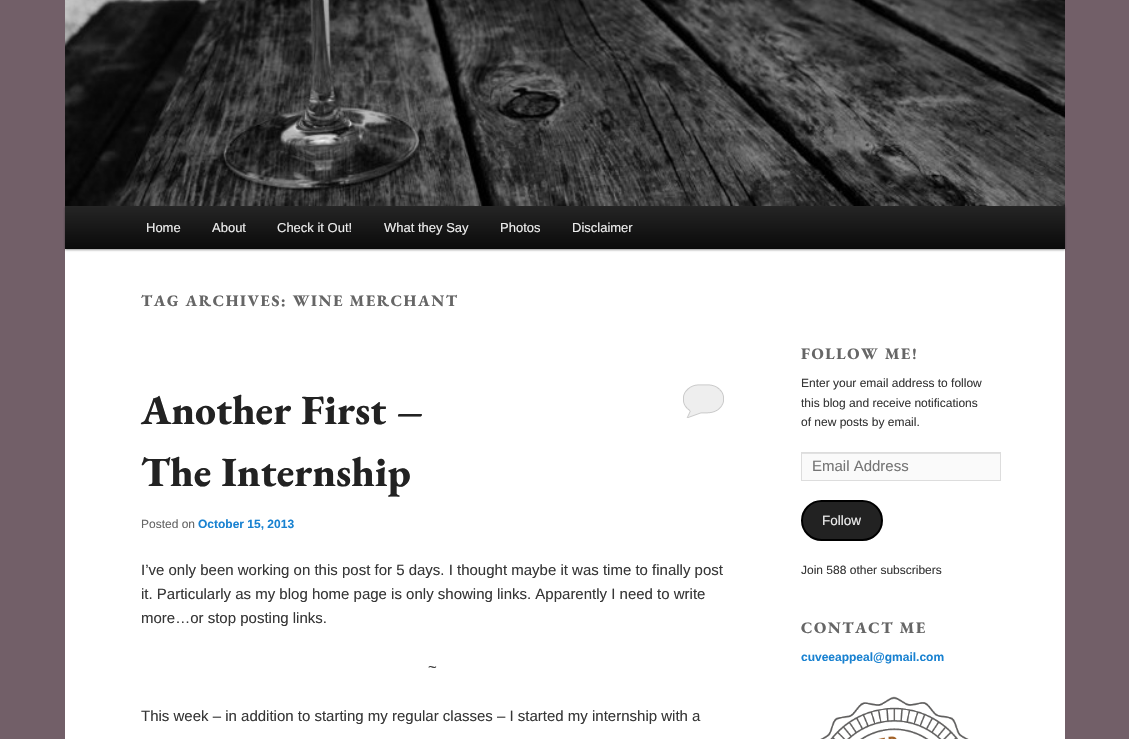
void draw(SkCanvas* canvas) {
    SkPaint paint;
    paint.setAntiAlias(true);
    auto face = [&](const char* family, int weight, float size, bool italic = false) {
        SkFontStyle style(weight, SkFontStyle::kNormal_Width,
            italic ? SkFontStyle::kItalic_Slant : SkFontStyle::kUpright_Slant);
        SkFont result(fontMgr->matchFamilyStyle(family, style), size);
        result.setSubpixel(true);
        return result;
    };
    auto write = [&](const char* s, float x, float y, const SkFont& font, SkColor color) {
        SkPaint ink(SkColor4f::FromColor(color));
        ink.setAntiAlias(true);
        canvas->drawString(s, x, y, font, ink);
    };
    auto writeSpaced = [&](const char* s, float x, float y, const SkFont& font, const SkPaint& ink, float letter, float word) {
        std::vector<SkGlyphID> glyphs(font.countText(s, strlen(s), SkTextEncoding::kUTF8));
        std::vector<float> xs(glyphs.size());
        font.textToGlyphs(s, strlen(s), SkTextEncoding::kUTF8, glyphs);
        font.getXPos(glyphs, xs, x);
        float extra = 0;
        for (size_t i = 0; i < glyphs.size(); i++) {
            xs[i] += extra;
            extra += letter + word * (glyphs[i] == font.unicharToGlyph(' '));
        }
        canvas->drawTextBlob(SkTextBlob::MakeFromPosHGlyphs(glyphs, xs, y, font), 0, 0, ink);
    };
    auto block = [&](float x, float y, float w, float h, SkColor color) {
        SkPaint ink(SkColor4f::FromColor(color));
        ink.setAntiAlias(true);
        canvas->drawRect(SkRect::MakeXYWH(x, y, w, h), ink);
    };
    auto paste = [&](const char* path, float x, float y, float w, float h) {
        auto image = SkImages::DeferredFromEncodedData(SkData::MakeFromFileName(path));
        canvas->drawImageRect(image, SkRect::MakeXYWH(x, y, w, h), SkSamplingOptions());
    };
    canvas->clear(SkColorSetRGB(114, 95, 104));
    block(65, 249, 1000, 490, SK_ColorWHITE);
    paint.setColor(SkColorSetARGB(102, 0, 0, 0));
    paint.setMaskFilter(SkMaskFilter::MakeBlur(kNormal_SkBlurStyle, 1));
    canvas->drawRect(SkRect::MakeXYWH(65, 207, 1000, 43), paint);
    paint.setMaskFilter(nullptr);
    paste("pic1.png", 65, 0, 1000, 206);
    {
        const SkColor colors[] = {SkColorSetRGB(37, 37, 37), SkColorSetRGB(10, 10, 10)};
        const float stops[] = {0, 1};
        const SkPoint ends[] = {{565, 206}, {565, 249}};
        paint.setShader(SkGradientShader::MakeLinear(ends, colors, stops, 2, SkTileMode::kClamp));
        paint.setAlpha(255);
    }
    canvas->drawRect(SkRect::MakeXYWH(65, 206, 1000, 43), paint);
    auto kFont1 = face("Liberation Sans", 400, 13);
    write("Home", 146, 232, kFont1, SkColorSetRGB(238, 238, 238));
    write("About", 212, 232, kFont1, SkColorSetRGB(238, 238, 238));
    write("Check it Out!", 277, 232, kFont1, SkColorSetRGB(238, 238, 238));
    write("What they Say", 384, 232, kFont1, SkColorSetRGB(238, 238, 238));
    write("Photos", 500, 232, kFont1, SkColorSetRGB(238, 238, 238));
    write("Disclaimer", 572, 232, kFont1, SkColorSetRGB(238, 238, 238));
    auto kFont2 = face("EB Garamond", 800, 16);
    paint.setShader(nullptr);
    paint.setColor(SkColorSetRGB(102, 102, 102));
    writeSpaced("TAG ARCHIVES: WINE MERCHANT", 141, 306, kFont2, paint, 1.6f, 0);
    auto kFont3 = face("EB Garamond", 800, 41.5f);
    write("Another First –", 141, 424, kFont3, SkColorSetRGB(34, 34, 34));
    write("The Internship", 141, 486, kFont3, SkColorSetRGB(34, 34, 34));
    block(683, 384, 41, 34, SkColorSetRGB(238, 238, 238));
    paste("pic2.png", 682, 382, 43, 36);
    auto kFont4 = face("Liberation Sans", 400, 12);
    write("Posted on", 141, 528, kFont4, SkColorSetRGB(102, 102, 102));
    auto kFont5 = face("Liberation Sans", 700, 12);
    write("October 15, 2013", 198, 528, kFont5, SkColorSetRGB(25, 130, 209));
    auto kFont6 = face("Liberation Sans", 400, 15);
    write("I’ve only been working on this post for 5 days. I thought maybe it was time to finally post", 141, 575, kFont6, SkColorSetRGB(55, 55, 55));
    write("it. Particularly as my blog home page is only showing links. Apparently I need to write", 141, 599, kFont6, SkColorSetRGB(55, 55, 55));
    write("more…or stop posting links.", 141, 623, kFont6, SkColorSetRGB(55, 55, 55));
    write("~", 428, 672, kFont6, SkColorSetRGB(55, 55, 55));
    write("This week – in addition to starting my regular classes – I started my internship with a", 141, 721, kFont6, SkColorSetRGB(55, 55, 55));
    writeSpaced("FOLLOW ME!", 801, 359, kFont2, paint, 1.6f, 0);
    write("Enter your email address to follow", 801, 387, kFont4, SkColorSetRGB(55, 55, 55));
    write("this blog and receive notifications", 801, 407, kFont4, SkColorSetRGB(55, 55, 55));
    write("of new posts by email.", 801, 426, kFont4, SkColorSetRGB(55, 55, 55));
    block(802, 454, 198, 26, SkColorSetRGB(250, 250, 250));
    block(802, 453, 198, 1, SkColorSetRGB(225, 225, 225));
    paint.setStyle(SkPaint::kStroke_Style);
    paint.setStrokeWidth(1);
    paint.setColor(SkColorSetRGB(221, 221, 221));
    canvas->drawRect(SkRect::MakeXYWH(801.5f, 452.5f, 199, 28), paint);
    write("Email Address", 812, 471, kFont6, SkColorSetRGB(117, 117, 117));
    paint.setStyle(SkPaint::kFill_Style);
    paint.setColor(SkColorSetRGB(34, 34, 34));
    canvas->drawRoundRect(SkRect::MakeXYWH(802, 501, 80, 39), 19.5f, 19.5f, paint);
    paint.setStyle(SkPaint::kStroke_Style);
    paint.setStrokeWidth(2);
    paint.setColor(SK_ColorBLACK);
    canvas->drawRoundRect(SkRect::MakeXYWH(802, 501, 80, 39), 19.5f, 19.5f, paint);
    auto kFont7 = face("Liberation Sans", 400, 13.5f);
    write("Follow", 822, 525, kFont7, SkColorSetRGB(238, 238, 238));
    write("Join 588 other subscribers", 801, 574, kFont4, SkColorSetRGB(55, 55, 55));
    paint.setStyle(SkPaint::kFill_Style);
    paint.setColor(SkColorSetRGB(102, 102, 102));
    writeSpaced("CONTACT ME", 801, 633, kFont2, paint, 1.6f, 0);
    write("cuveeappeal@gmail.com", 801, 661, kFont5, SkColorSetRGB(25, 130, 209));
    paste("pic3.png", 820, 696, 149, 43);
}
